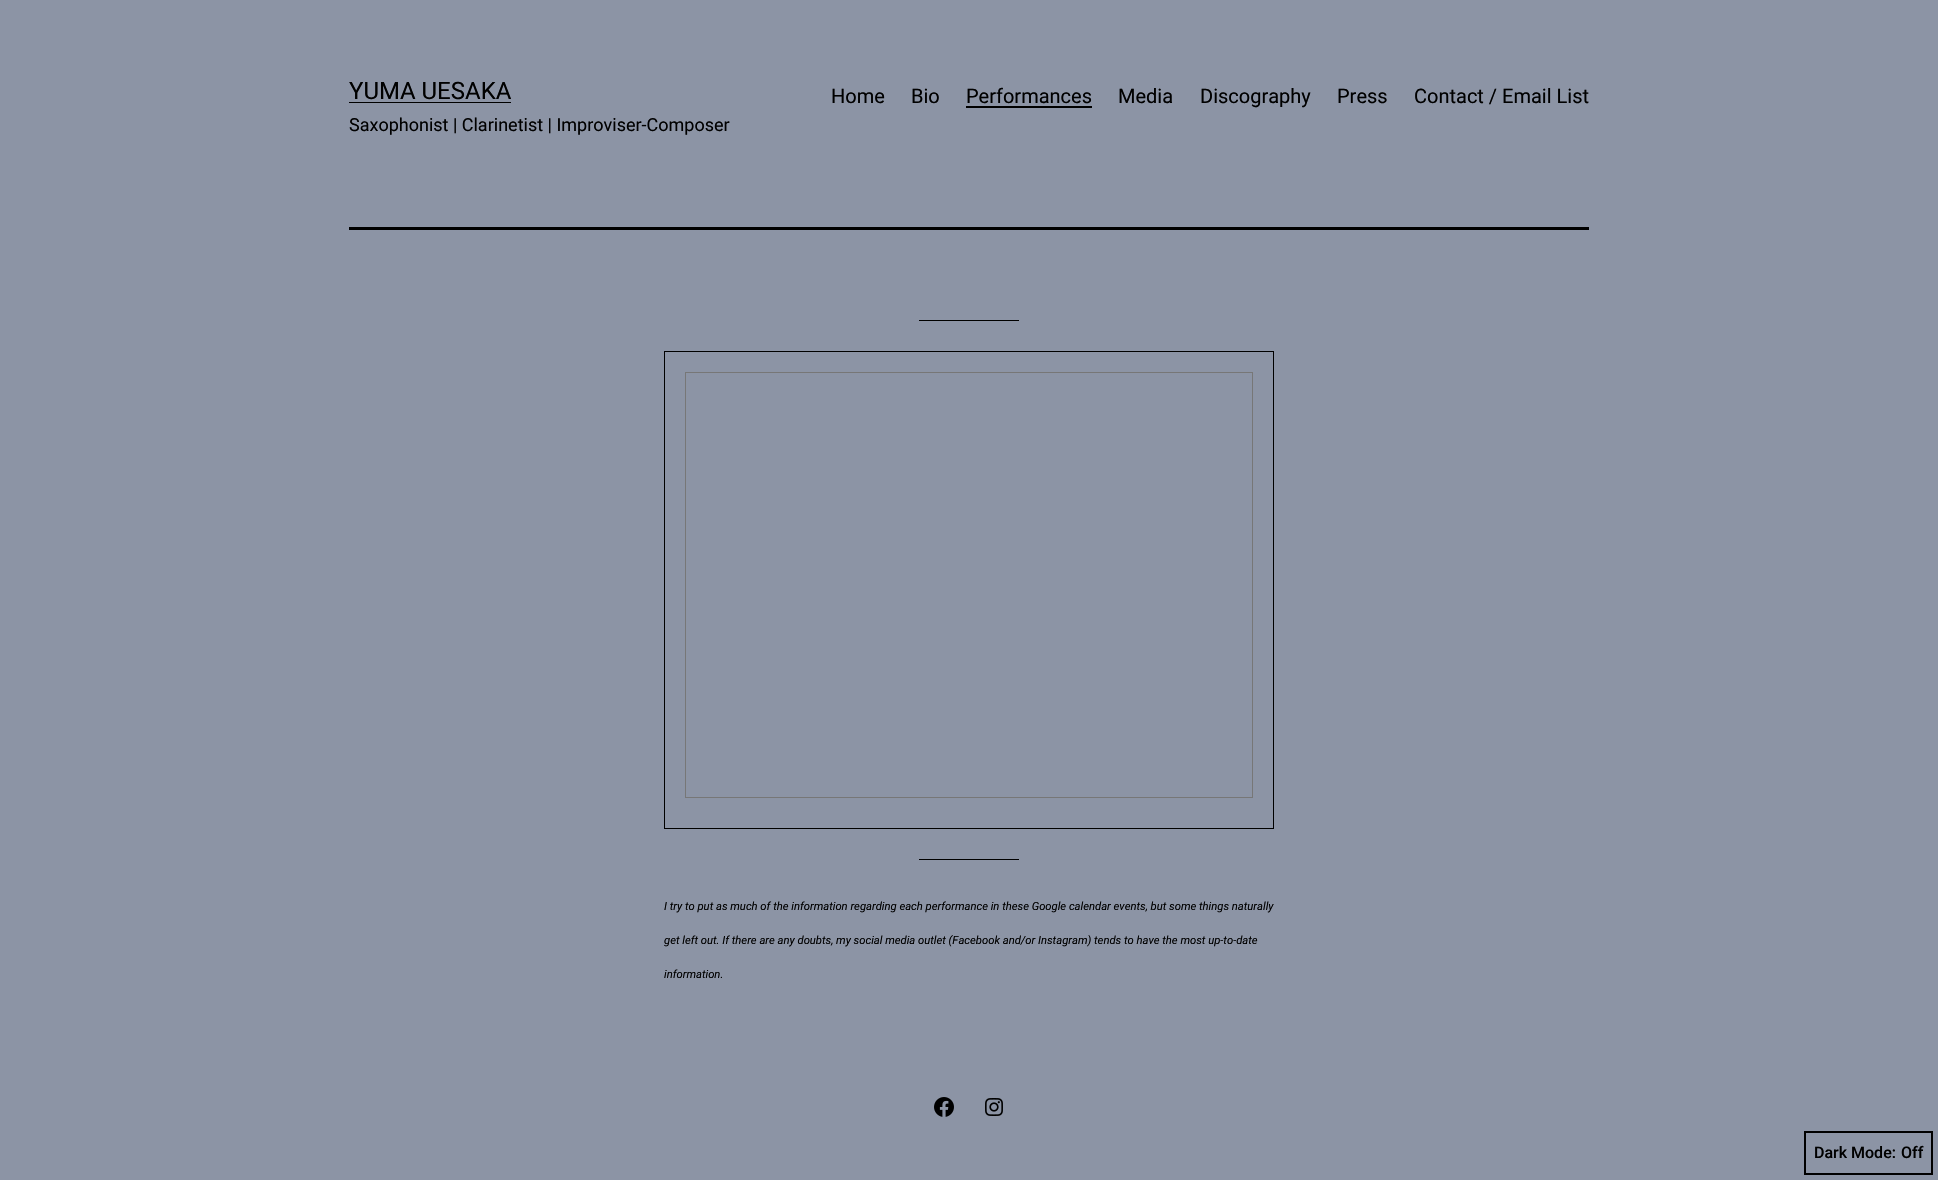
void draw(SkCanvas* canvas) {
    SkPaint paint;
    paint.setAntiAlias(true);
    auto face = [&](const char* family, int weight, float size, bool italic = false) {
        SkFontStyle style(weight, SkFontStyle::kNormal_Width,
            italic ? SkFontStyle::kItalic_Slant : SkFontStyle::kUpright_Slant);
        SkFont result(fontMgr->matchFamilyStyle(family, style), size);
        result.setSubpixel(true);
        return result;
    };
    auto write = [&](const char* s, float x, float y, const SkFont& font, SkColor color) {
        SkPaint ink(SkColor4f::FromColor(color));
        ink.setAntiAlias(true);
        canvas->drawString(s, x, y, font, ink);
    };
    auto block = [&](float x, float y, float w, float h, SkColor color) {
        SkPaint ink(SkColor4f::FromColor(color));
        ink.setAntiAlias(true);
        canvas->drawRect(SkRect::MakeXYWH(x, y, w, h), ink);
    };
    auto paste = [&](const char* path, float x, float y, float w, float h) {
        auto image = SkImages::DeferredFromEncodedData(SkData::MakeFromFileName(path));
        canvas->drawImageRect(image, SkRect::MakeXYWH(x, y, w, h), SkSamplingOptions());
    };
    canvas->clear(SkColorSetRGB(140, 148, 165));
    auto kFont1 = face("Roboto", 400, 24);
    write("YUMA UESAKA", 349, 99, kFont1, SK_ColorBLACK);
    block(349, 102, 162, 1, SK_ColorBLACK);
    auto kFont2 = face("Roboto", 400, 18);
    write("Saxophonist | Clarinetist | Improviser-Composer", 349, 131, kFont2, SK_ColorBLACK);
    auto kFont3 = face("Roboto", 400, 20);
    write("Home", 831, 103, kFont3, SK_ColorBLACK);
    write("Bio", 911, 103, kFont3, SK_ColorBLACK);
    write("Performances", 966, 103, kFont3, SK_ColorBLACK);
    block(966, 106, 126, 2, SK_ColorBLACK);
    write("Media", 1118, 103, kFont3, SK_ColorBLACK);
    write("Discography", 1200, 103, kFont3, SK_ColorBLACK);
    write("Press", 1337, 103, kFont3, SK_ColorBLACK);
    write("Contact / Email List", 1414, 103, kFont3, SK_ColorBLACK);
    block(349, 227, 1240, 3, SK_ColorBLACK);
    block(919, 320, 100, 1, SK_ColorBLACK);
    paint.setStyle(SkPaint::kStroke_Style);
    paint.setStrokeWidth(1);
    paint.setColor(SK_ColorBLACK);
    canvas->drawRect(SkRect::MakeXYWH(664.5f, 351.5f, 609, 477), paint);
    paint.setColor(SkColorSetRGB(119, 119, 119));
    canvas->drawRect(SkRect::MakeXYWH(685.5f, 372.5f, 567, 425), paint);
    block(919, 859, 100, 1, SK_ColorBLACK);
    auto kFont4 = face("Roboto", 400, 11.25f, true);
    write("I try to put as much of the information regarding each performance in these Google calendar events, but some things naturally", 664, 910, kFont4, SK_ColorBLACK);
    write("get left out. If there are any doubts, my social media outlet (Facebook and/or Instagram) tends to have the most up-to-date", 664, 944, kFont4, SK_ColorBLACK);
    write("information.", 664, 978, kFont4, SK_ColorBLACK);
    paste("pic1.png", 934, 1097, 20, 20);
    paste("pic2.png", 985, 1098, 18, 18);
    paint.setStrokeWidth(2);
    paint.setColor(SK_ColorBLACK);
    canvas->drawRect(SkRect::MakeXYWH(1805, 1132, 127, 42), paint);
    auto kFont5 = face("Roboto", 500, 16);
    write("Dark Mode:", 1814, 1158, kFont5, SK_ColorBLACK);
    write("Off", 1901, 1158, kFont5, SK_ColorBLACK);
}
